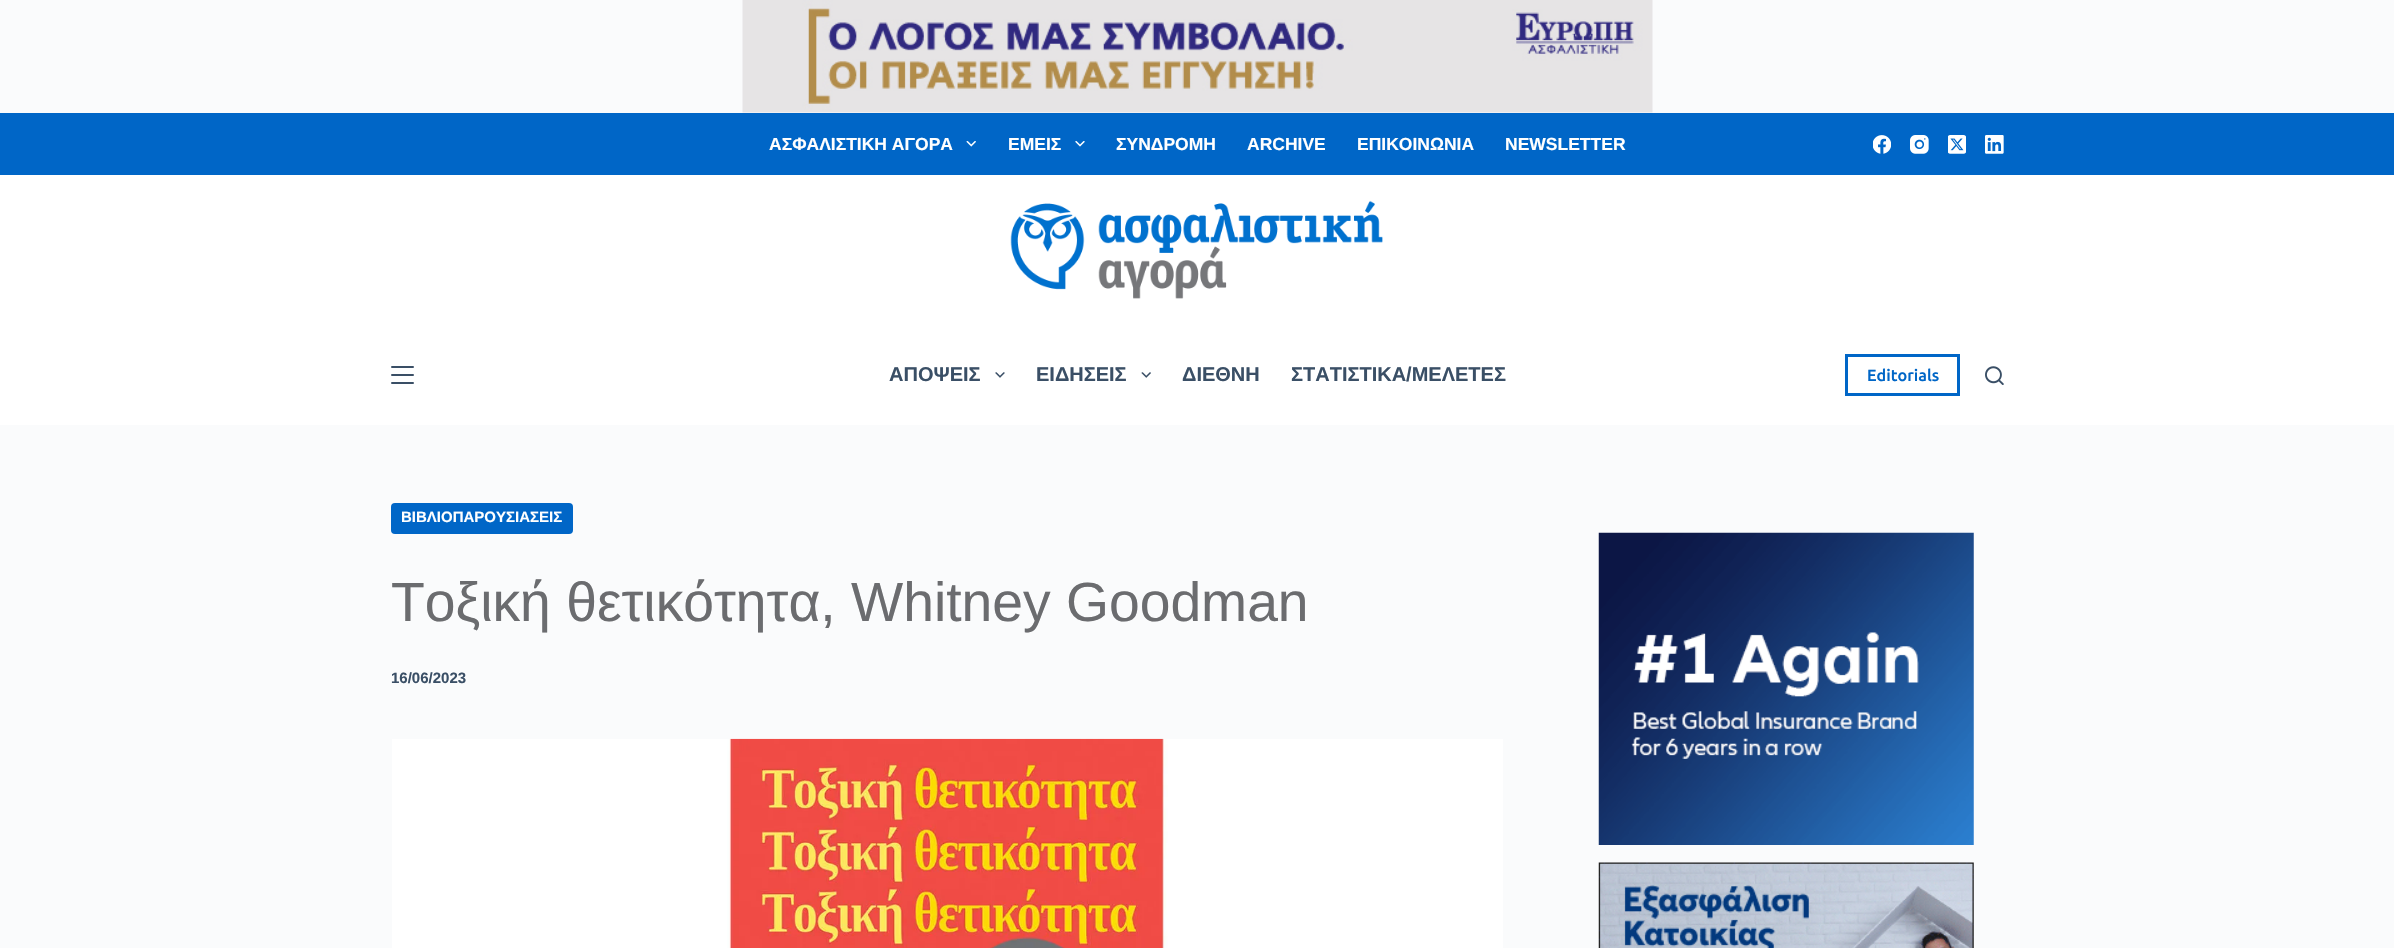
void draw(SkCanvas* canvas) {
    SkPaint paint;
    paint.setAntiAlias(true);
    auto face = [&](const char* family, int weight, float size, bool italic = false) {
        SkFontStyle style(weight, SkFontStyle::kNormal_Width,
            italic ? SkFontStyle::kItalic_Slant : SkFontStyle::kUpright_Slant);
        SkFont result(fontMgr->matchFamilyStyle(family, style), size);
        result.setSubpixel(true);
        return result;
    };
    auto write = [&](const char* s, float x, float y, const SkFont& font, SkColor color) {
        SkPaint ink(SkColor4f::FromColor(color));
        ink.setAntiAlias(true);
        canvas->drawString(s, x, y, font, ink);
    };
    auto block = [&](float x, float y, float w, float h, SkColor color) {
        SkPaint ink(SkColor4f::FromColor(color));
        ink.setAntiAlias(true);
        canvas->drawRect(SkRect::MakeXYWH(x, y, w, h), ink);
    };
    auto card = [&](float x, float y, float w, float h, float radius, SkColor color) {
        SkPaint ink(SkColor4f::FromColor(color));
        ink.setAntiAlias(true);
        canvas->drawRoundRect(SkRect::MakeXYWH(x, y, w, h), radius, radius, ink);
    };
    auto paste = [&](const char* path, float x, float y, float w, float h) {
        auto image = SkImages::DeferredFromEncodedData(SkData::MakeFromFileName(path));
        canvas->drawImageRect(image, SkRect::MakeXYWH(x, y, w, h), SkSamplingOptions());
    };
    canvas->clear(SkColorSetRGB(250, 251, 252));
    paste("pic1.png", 742, 0, 911, 113);
    block(0, 113, 2394, 62, SkColorSetRGB(0, 102, 199));
    auto kFont1 = face("Liberation Sans", 700, 17.5f);
    write("ΑΣΦΑΛΙΣΤΙΚΗ ΑΓΟΡΑ", 769, 150, kFont1, SK_ColorWHITE);
    paste("pic2.png", 966, 141, 10, 6);
    write("ΕΜΕΙΣ", 1008, 150, kFont1, SK_ColorWHITE);
    paste("pic3.png", 1075, 141, 10, 6);
    write("ΣΥΝΔΡΟΜΗ", 1116, 150, kFont1, SK_ColorWHITE);
    write("ARCHIVE", 1247, 150, kFont1, SK_ColorWHITE);
    write("ΕΠΙΚΟΙΝΩΝΙΑ", 1357, 150, kFont1, SK_ColorWHITE);
    write("NEWSLETTER", 1505, 150, kFont1, SK_ColorWHITE);
    paste("pic4.png", 1873, 135, 18, 19);
    paste("pic5.png", 1910, 135, 19, 19);
    paste("pic6.png", 1948, 135, 18, 19);
    paste("pic7.png", 1985, 135, 19, 19);
    block(0, 175, 2394, 250, SK_ColorWHITE);
    paste("pic8.png", 1010, 200, 373, 99);
    card(391, 366, 23, 2, 1, SkColorSetRGB(58, 79, 102));
    card(391, 374, 23, 2, 1, SkColorSetRGB(58, 79, 102));
    card(391, 382, 23, 2, 1, SkColorSetRGB(58, 79, 102));
    auto kFont2 = face("Liberation Sans", 700, 20);
    write("ΑΠΟΨΕΙΣ", 889, 381, kFont2, SkColorSetRGB(58, 79, 102));
    paste("pic9.png", 995, 372, 10, 6);
    write("ΕΙΔΗΣΕΙΣ", 1036, 381, kFont2, SkColorSetRGB(58, 79, 102));
    paste("pic10.png", 1141, 372, 10, 6);
    write("ΔΙΕΘΝΗ", 1182, 381, kFont2, SkColorSetRGB(58, 79, 102));
    write("ΣΤΑΤΙΣΤΙΚΑ/ΜΕΛΕΤΕΣ", 1291, 381, kFont2, SkColorSetRGB(58, 79, 102));
    paint.setStyle(SkPaint::kStroke_Style);
    paint.setStrokeWidth(3);
    paint.setColor(SkColorSetRGB(0, 102, 199));
    canvas->drawRect(SkRect::MakeXYWH(1846.5f, 355.5f, 112, 39), paint);
    auto kFont3 = face("Ubuntu", 500, 16.25f);
    write("Editorials", 1867, 381, kFont3, SkColorSetRGB(0, 102, 199));
    paste("pic11.png", 1985, 366, 19, 19);
    card(391, 503, 182, 31, 4, SkColorSetRGB(0, 102, 199));
    auto kFont4 = face("Liberation Sans", 700, 15);
    write("ΒΙΒΛΙΟΠΑΡΟΥΣΙΑΣΕΙΣ", 401, 522, kFont4, SK_ColorWHITE);
    auto kFont5 = face("Liberation Sans", 400, 55.25f);
    write("Τοξική θετικότητα, Whitney Goodman", 391, 621, kFont5, SkColorSetRGB(107, 108, 111));
    write("16/06/2023", 391, 683, kFont4, SkColorSetRGB(58, 79, 102));
    paste("pic12.png", 392, 738, 1111, 210);
    paste("pic13.png", 1598, 532, 376, 313);
    paste("pic14.png", 1598, 862, 376, 86);
}
